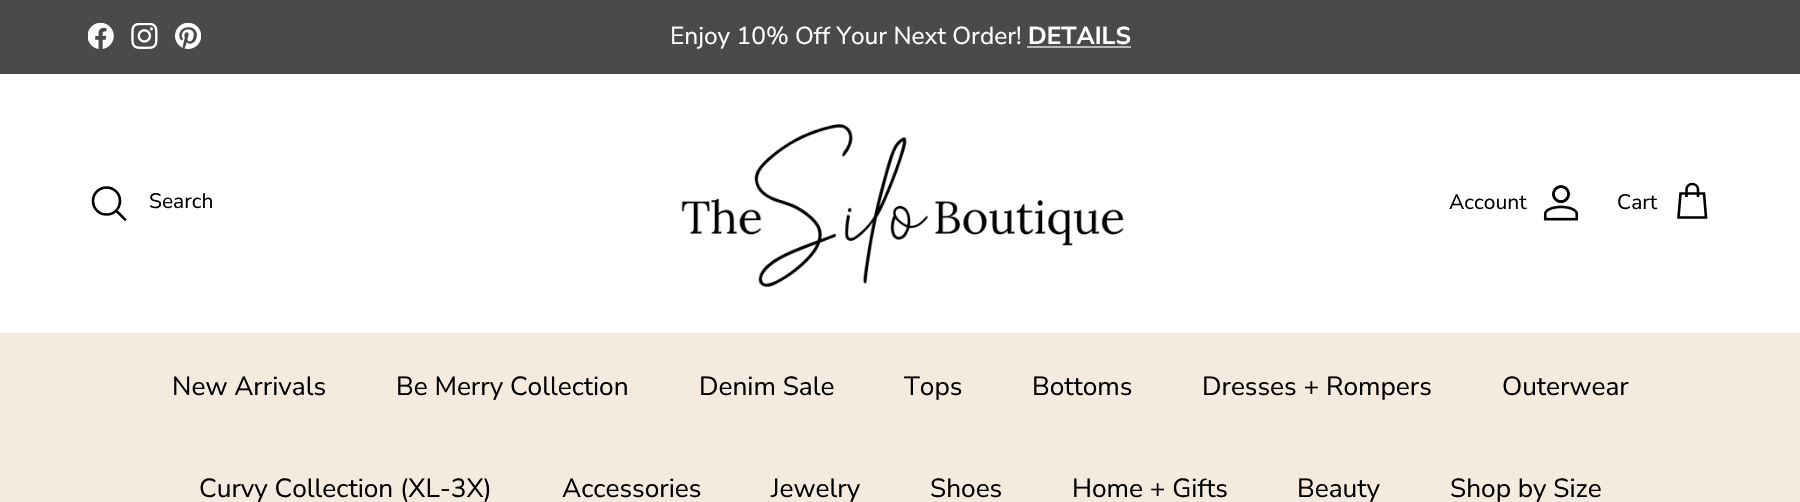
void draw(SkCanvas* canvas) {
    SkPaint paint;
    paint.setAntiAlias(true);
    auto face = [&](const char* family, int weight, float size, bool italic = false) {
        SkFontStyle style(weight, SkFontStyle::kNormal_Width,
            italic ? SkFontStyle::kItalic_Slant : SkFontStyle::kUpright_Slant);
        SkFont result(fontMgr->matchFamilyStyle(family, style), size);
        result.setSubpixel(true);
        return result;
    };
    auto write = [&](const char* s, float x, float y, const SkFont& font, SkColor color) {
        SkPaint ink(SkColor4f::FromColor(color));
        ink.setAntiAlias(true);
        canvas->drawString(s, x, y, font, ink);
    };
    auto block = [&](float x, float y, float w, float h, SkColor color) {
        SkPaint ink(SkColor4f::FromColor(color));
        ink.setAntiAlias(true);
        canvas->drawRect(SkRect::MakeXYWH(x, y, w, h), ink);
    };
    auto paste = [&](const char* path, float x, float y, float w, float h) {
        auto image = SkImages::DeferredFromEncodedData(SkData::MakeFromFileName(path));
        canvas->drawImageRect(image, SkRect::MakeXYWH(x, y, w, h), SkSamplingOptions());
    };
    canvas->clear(SK_ColorWHITE);
    block(0, 0, 1800, 74, SkColorSetRGB(74, 74, 74));
    paste("pic1.png", 88, 23, 26, 26);
    paste("pic2.png", 131, 23, 27, 26);
    paste("pic3.png", 175, 23, 26, 26);
    auto kFont1 = face("Nunito Sans", 400, 24.5f);
    write("Enjoy 10% Off Your Next Order!", 670, 44, kFont1, SK_ColorWHITE);
    auto kFont2 = face("Nunito Sans", 700, 24.5f);
    write("DETAILS", 1028, 44, kFont2, SK_ColorWHITE);
    block(1027, 46, 104, 2, SkColorSetRGB(183, 183, 183));
    paint.setStyle(SkPaint::kStroke_Style);
    paint.setStrokeWidth(2.6f);
    paint.setColor(SK_ColorBLACK);
    canvas->drawCircle(106.5f, 201, 13.5f, paint);
    auto kFont3 = face("Nunito Sans", 400, 21);
    write("Search", 149, 208, kFont3, SK_ColorBLACK);
    paint.setStrokeCap(SkPaint::kSquare_Cap);
    canvas->drawPath(SkPathBuilder().moveTo(117, 211.5f).lineTo(125, 219.5f).detach(), paint);
    paste("pic4.png", 681, 124, 443, 163);
    write("Account", 1449, 209, kFont3, SK_ColorBLACK);
    paste("pic5.png", 1543, 185, 36, 36);
    write("Cart", 1617, 209, kFont3, SK_ColorBLACK);
    paint.setStrokeCap(SkPaint::kButt_Cap);
    canvas->drawPath(SkPathBuilder().moveTo(1698, 197).lineTo(1698, 189.5f).cubicTo(1698, 186.5f, 1695.5f, 184, 1692, 184).cubicTo(1689, 184, 1686.5f, 186.5f, 1686.5f, 189.5f).lineTo(1686.5f, 197).moveTo(1680.5f, 193.5f).lineTo(1704, 193.5f).lineTo(1706, 217.5f).lineTo(1678.5f, 217.5f).close().detach(), paint);
    block(0, 333, 1800, 169, SkColorSetRGB(244, 234, 222));
    auto kFont4 = face("Nunito Sans", 400, 26.25f);
    write("New Arrivals", 172, 395, kFont4, SK_ColorBLACK);
    write("Be Merry Collection", 396, 395, kFont4, SK_ColorBLACK);
    write("Denim Sale", 699, 395, kFont4, SK_ColorBLACK);
    write("Tops", 904, 395, kFont4, SK_ColorBLACK);
    write("Bottoms", 1032, 395, kFont4, SK_ColorBLACK);
    write("Dresses + Rompers", 1202, 395, kFont4, SK_ColorBLACK);
    write("Outerwear", 1502, 395, kFont4, SK_ColorBLACK);
    write("Curvy Collection (XL-3X)", 199, 497, kFont4, SK_ColorBLACK);
    write("Accessories", 562, 497, kFont4, SK_ColorBLACK);
    write("Jewelry", 771, 497, kFont4, SK_ColorBLACK);
    write("Shoes", 930, 497, kFont4, SK_ColorBLACK);
    write("Home + Gifts", 1072, 497, kFont4, SK_ColorBLACK);
    write("Beauty", 1297, 497, kFont4, SK_ColorBLACK);
    write("Shop by Size", 1450, 497, kFont4, SK_ColorBLACK);
}
